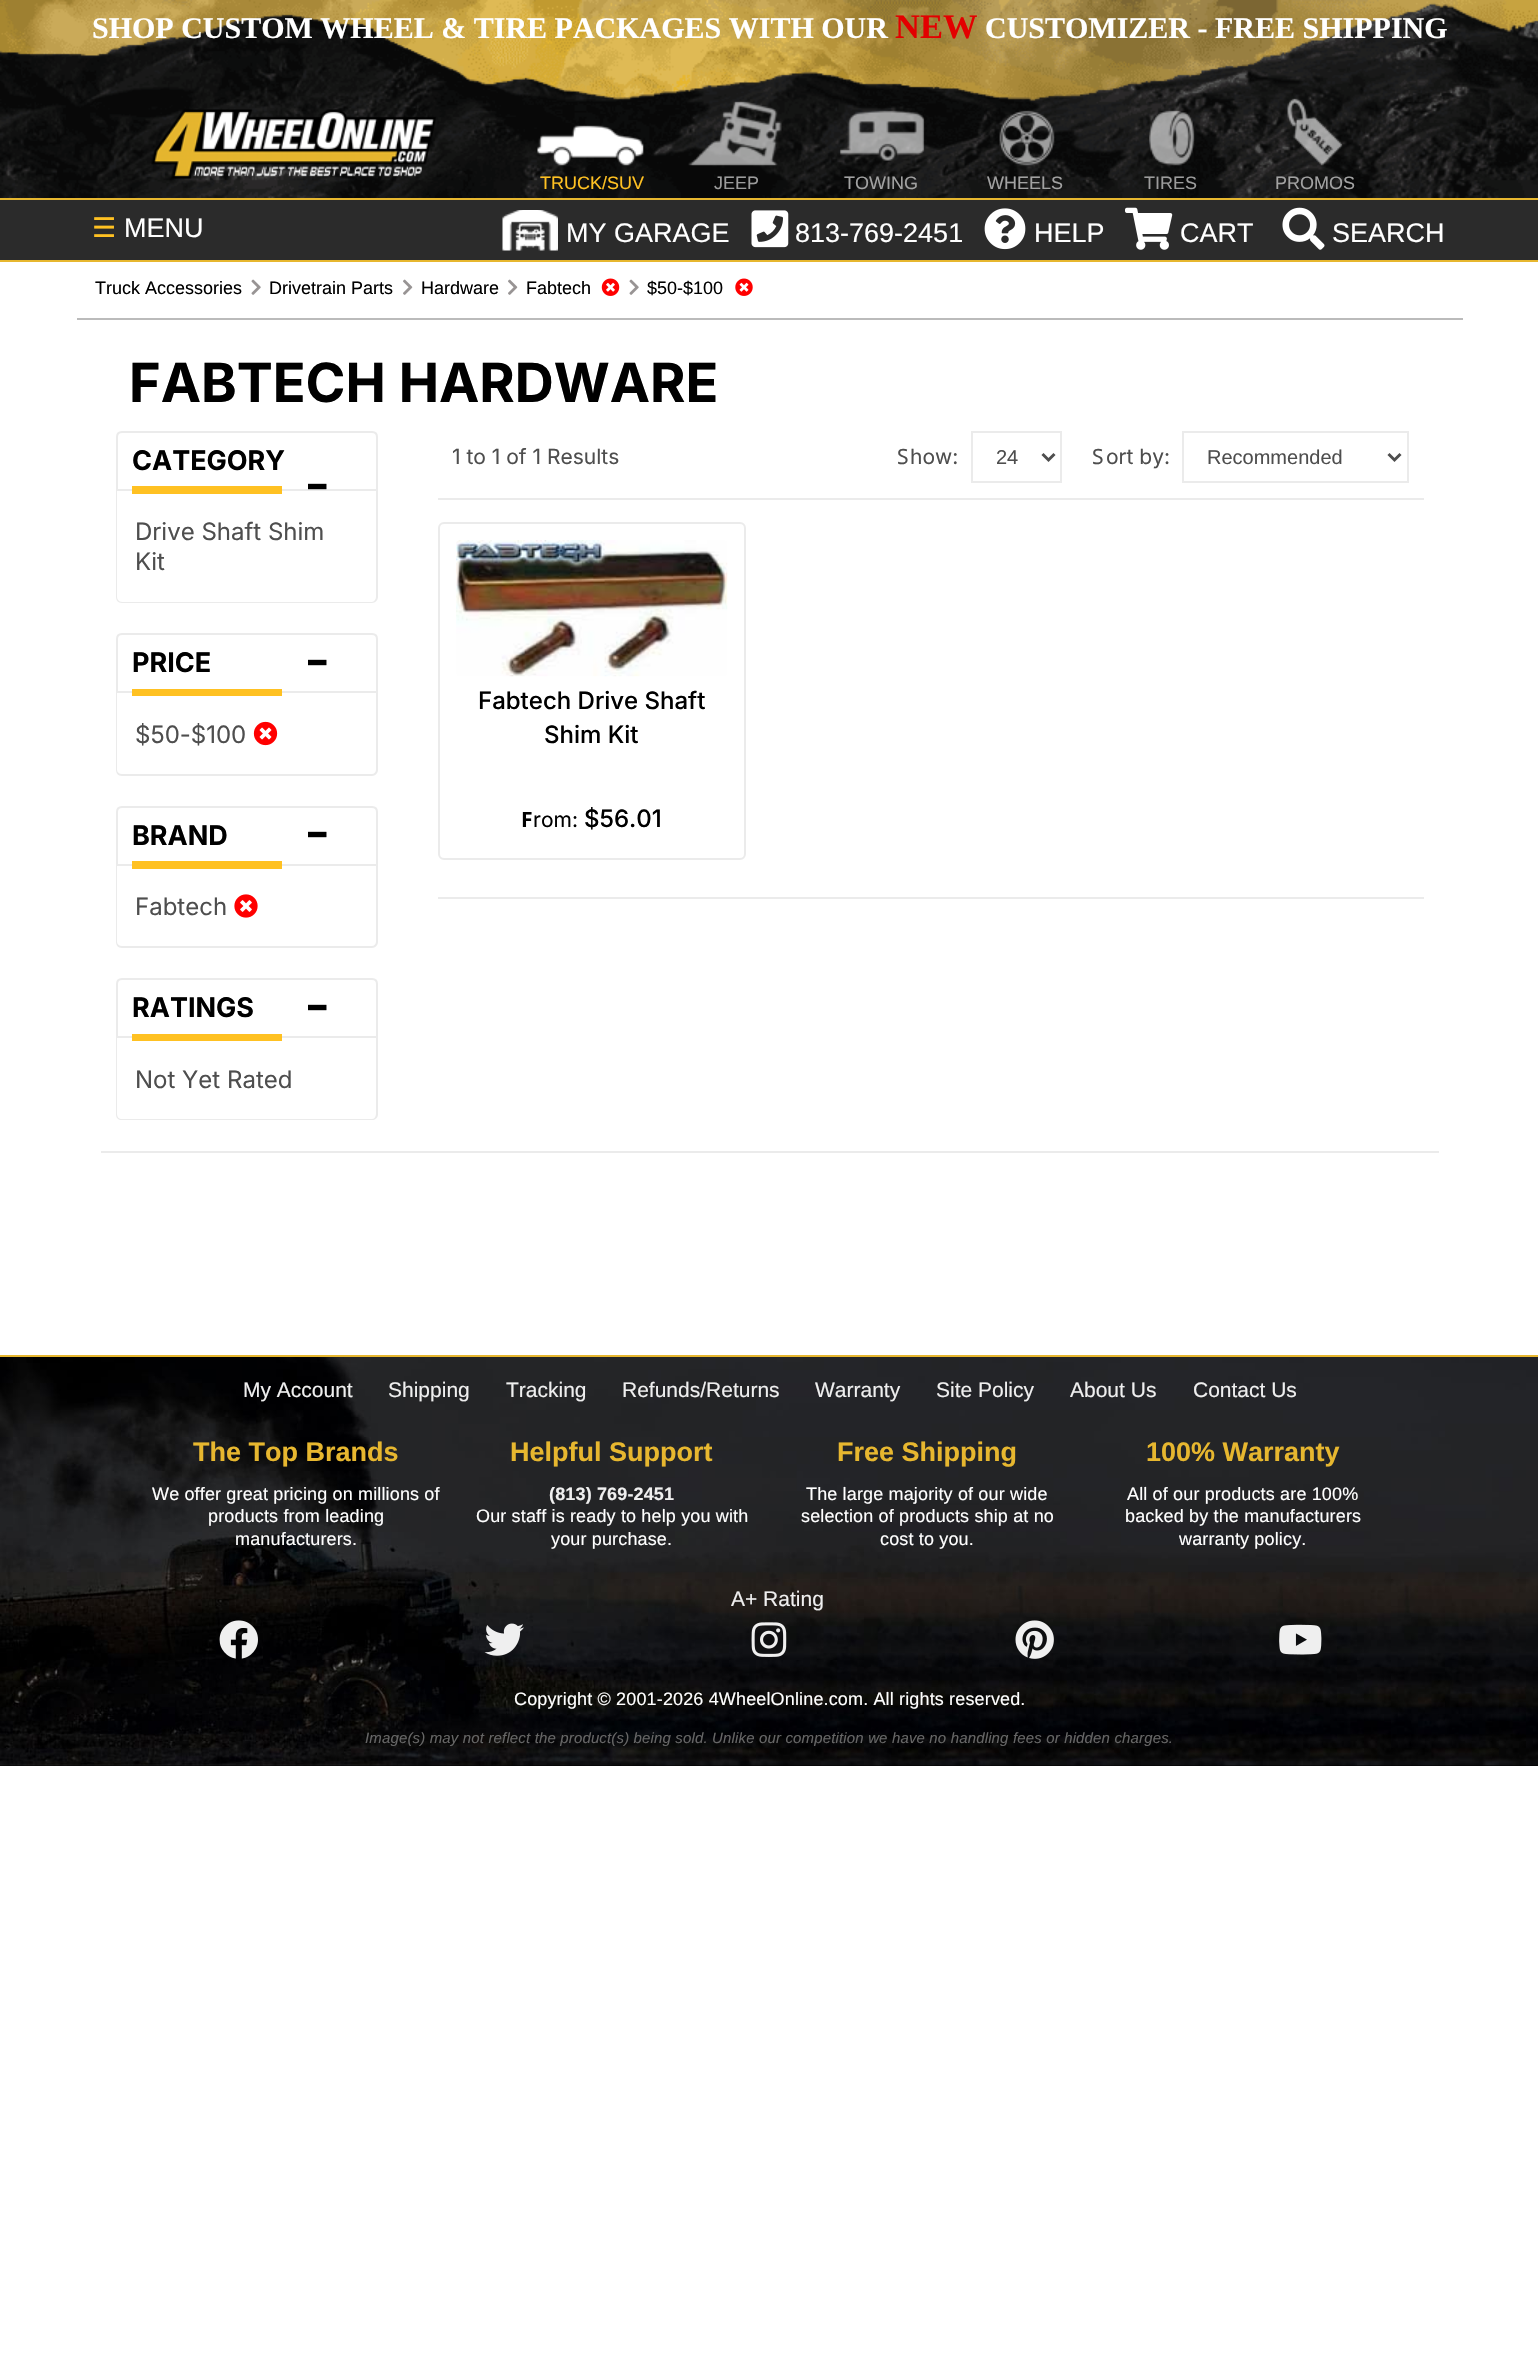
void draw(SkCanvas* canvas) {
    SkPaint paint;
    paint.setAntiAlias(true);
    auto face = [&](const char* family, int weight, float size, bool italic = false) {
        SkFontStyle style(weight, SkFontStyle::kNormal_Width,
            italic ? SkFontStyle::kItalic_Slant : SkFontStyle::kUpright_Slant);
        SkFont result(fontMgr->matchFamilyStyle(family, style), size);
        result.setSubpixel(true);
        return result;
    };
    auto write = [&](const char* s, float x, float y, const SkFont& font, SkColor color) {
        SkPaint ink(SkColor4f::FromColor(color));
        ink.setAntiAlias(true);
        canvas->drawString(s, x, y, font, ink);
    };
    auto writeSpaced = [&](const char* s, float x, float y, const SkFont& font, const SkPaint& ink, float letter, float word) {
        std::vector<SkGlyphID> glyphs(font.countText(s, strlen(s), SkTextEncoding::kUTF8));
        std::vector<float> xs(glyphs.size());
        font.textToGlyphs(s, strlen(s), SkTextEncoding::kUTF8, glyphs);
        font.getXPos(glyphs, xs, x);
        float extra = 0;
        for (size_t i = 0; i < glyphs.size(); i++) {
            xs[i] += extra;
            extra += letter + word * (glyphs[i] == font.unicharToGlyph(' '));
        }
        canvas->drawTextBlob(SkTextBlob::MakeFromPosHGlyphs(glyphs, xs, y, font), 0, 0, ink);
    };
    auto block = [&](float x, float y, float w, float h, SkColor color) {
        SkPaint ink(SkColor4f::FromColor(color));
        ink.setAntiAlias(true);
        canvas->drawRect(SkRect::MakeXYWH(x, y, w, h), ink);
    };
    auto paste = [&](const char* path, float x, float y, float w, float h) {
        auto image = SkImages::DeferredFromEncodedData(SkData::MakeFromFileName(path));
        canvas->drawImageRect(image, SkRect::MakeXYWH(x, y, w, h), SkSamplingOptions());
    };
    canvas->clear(SK_ColorWHITE);
    block(0, 0, 1538, 101, SkColorSetRGB(231, 183, 47));
    paste("pic1.png", 0, 0, 1538, 198);
    auto kFont1 = face("Liberation Serif", 700, 30);
    write("SHOP CUSTOM WHEEL & TIRE PACKAGES WITH OUR", 92, 38, kFont1, SK_ColorWHITE);
    auto kFont2 = face("Liberation Serif", 700, 34.5f);
    write("NEW", 895, 38, kFont2, SkColorSetRGB(227, 0, 0));
    write("CUSTOMIZER - FREE SHIPPING", 985, 38, kFont1, SK_ColorWHITE);
    paste("pic2.png", 151, 109, 285, 70);
    paste("pic3.png", 537, 125, 107, 41);
    auto kFont3 = face("Liberation Sans", 400, 18);
    write("TRUCK/SUV", 540, 189, kFont3, SkColorSetRGB(255, 193, 34));
    paste("pic4.png", 688, 101, 94, 65);
    write("JEEP", 714, 189, kFont3, SkColorSetRGB(156, 156, 156));
    paste("pic5.png", 840, 110, 85, 51);
    write("TOWING", 844, 189, kFont3, SkColorSetRGB(162, 162, 162));
    paste("pic6.png", 999, 110, 56, 56);
    write("WHEELS", 987, 189, kFont3, SkColorSetRGB(162, 162, 162));
    paste("pic7.png", 1149, 110, 46, 56);
    write("TIRES", 1144, 189, kFont3, SkColorSetRGB(156, 156, 156));
    paste("pic8.png", 1287, 98, 56, 68);
    write("PROMOS", 1275, 189, kFont3, SkColorSetRGB(162, 162, 162));
    block(0, 200, 1538, 60, SkColorSetRGB(43, 43, 43));
    block(0, 198, 1538, 2, SkColorSetRGB(231, 183, 47));
    block(0, 260, 1538, 2, SkColorSetRGB(231, 183, 47));
    auto kFont4 = face("DejaVu Sans", 400, 27);
    write("☰", 92, 237, kFont4, SkColorSetRGB(255, 193, 34));
    auto kFont5 = face("Liberation Sans", 400, 27);
    write("MENU", 124, 237, kFont5, SK_ColorWHITE);
    paste("pic9.png", 502, 210, 56, 41);
    write("MY GARAGE", 566, 242, kFont5, SK_ColorWHITE);
    paste("pic10.png", 751, 210, 38, 38);
    write("813-769-2451", 795, 242, kFont5, SK_ColorWHITE);
    paste("pic11.png", 984, 208, 42, 42);
    write("HELP", 1034, 242, kFont5, SK_ColorWHITE);
    paste("pic12.png", 1125, 207, 48, 43);
    write("CART", 1180, 242, kFont5, SK_ColorWHITE);
    paste("pic13.png", 1282, 207, 43, 43);
    write("SEARCH", 1332, 242, kFont5, SK_ColorWHITE);
    block(77, 318, 1386, 2, SkColorSetRGB(187, 187, 187));
    write("Truck Accessories", 95, 294, kFont3, SK_ColorBLACK);
    paste("pic14.png", 251, 279, 10, 16);
    write("Drivetrain Parts", 269, 294, kFont3, SK_ColorBLACK);
    paste("pic15.png", 403, 279, 10, 16);
    write("Hardware", 421, 294, kFont3, SK_ColorBLACK);
    paste("pic15.png", 508, 279, 10, 16);
    write("Fabtech", 526, 294, kFont3, SK_ColorBLACK);
    paste("pic16.png", 601, 278, 19, 18);
    paste("pic14.png", 629, 279, 10, 16);
    write("$50-$100", 647, 294, kFont3, SK_ColorBLACK);
    paste("pic17.png", 735, 278, 18, 18);
    auto kFont6 = face("Inter", 700, 54);
    write("FABTECH HARDWARE", 129, 402, kFont6, SK_ColorBLACK);
    paint.setColor(SkColorSetRGB(235, 235, 235));
    canvas->drawPath(SkPathBuilder(SkPathFillType::kEvenOdd).moveTo(116, 490).lineTo(378, 490).lineTo(378, 597).cubicTo(378, 600, 375, 603, 372, 603).lineTo(122, 603).cubicTo(118, 603, 116, 600, 116, 597).close().moveTo(117, 490).lineTo(376, 490).lineTo(376, 597).cubicTo(376, 599, 374, 602, 372, 602).lineTo(122, 602).cubicTo(119, 602, 117, 599, 117, 597).close().detach(), paint);
    paint.setStyle(SkPaint::kStroke_Style);
    paint.setStrokeWidth(2);
    canvas->drawPath(SkPathBuilder().moveTo(122, 432).lineTo(372, 432).cubicTo(375, 432, 377, 434, 377, 437).lineTo(377, 490).lineTo(117, 490).lineTo(117, 437).cubicTo(117, 434, 119, 432, 122, 432).close().detach(), paint);
    auto kFont7 = face("Inter", 700, 27);
    write("CATEGORY", 132, 470, kFont7, SK_ColorBLACK);
    block(132, 486, 150, 8, SkColorSetRGB(255, 193, 34));
    auto kFont8 = face("Inter", 500, 57);
    write("-", 304, 504, kFont8, SK_ColorBLACK);
    auto kFont9 = face("Inter", 400, 24);
    write("Drive Shaft Shim", 135, 540, kFont9, SkColorSetRGB(78, 78, 78));
    write("Kit", 135, 570, kFont9, SkColorSetRGB(78, 78, 78));
    canvas->drawPath(SkPathBuilder().moveTo(122, 634).lineTo(372, 634).cubicTo(375, 634, 377, 636, 377, 639).lineTo(377, 692).lineTo(117, 692).lineTo(117, 639).cubicTo(117, 636, 119, 634, 122, 634).close().detach(), paint);
    write("PRICE", 132, 672, kFont7, SK_ColorBLACK);
    write("-", 304, 680, kFont8, SK_ColorBLACK);
    paint.setStyle(SkPaint::kFill_Style);
    canvas->drawPath(SkPathBuilder(SkPathFillType::kEvenOdd).moveTo(116, 693).lineTo(378, 693).lineTo(378, 770).cubicTo(378, 773, 375, 776, 372, 776).lineTo(122, 776).cubicTo(118, 776, 116, 773, 116, 770).close().moveTo(117, 693).lineTo(376, 693).lineTo(376, 770).cubicTo(376, 772, 374, 774, 372, 774).lineTo(122, 774).cubicTo(119, 774, 117, 772, 117, 770).close().detach(), paint);
    block(132, 689, 150, 7, SkColorSetRGB(255, 193, 34));
    write("$50-$100", 135, 743, kFont9, SkColorSetRGB(78, 78, 78));
    paste("pic18.png", 253, 721, 25, 25);
    paint.setStyle(SkPaint::kStroke_Style);
    canvas->drawPath(SkPathBuilder().moveTo(122, 807).lineTo(372, 807).cubicTo(375, 807, 377, 809, 377, 812).lineTo(377, 865).lineTo(117, 865).lineTo(117, 812).cubicTo(117, 809, 119, 807, 122, 807).close().detach(), paint);
    write("BRAND", 132, 845, kFont7, SK_ColorBLACK);
    write("-", 304, 852, kFont8, SK_ColorBLACK);
    paint.setStyle(SkPaint::kFill_Style);
    canvas->drawPath(SkPathBuilder(SkPathFillType::kEvenOdd).moveTo(116, 866).lineTo(378, 866).lineTo(378, 942).cubicTo(378, 945, 375, 948, 372, 948).lineTo(122, 948).cubicTo(118, 948, 116, 945, 116, 942).close().moveTo(117, 866).lineTo(376, 866).lineTo(376, 942).cubicTo(376, 944, 374, 946, 372, 946).lineTo(122, 946).cubicTo(119, 946, 117, 944, 117, 942).close().detach(), paint);
    block(132, 861, 150, 8, SkColorSetRGB(255, 193, 34));
    write("Fabtech", 135, 915, kFont9, SkColorSetRGB(78, 78, 78));
    paste("pic19.png", 234, 894, 24, 24);
    paint.setStyle(SkPaint::kStroke_Style);
    canvas->drawPath(SkPathBuilder().moveTo(122, 979).lineTo(372, 979).cubicTo(375, 979, 377, 981, 377, 984).lineTo(377, 1037).lineTo(117, 1037).lineTo(117, 984).cubicTo(117, 981, 119, 979, 122, 979).close().detach(), paint);
    write("RATINGS", 132, 1017, kFont7, SK_ColorBLACK);
    write("-", 304, 1025, kFont8, SK_ColorBLACK);
    paint.setStyle(SkPaint::kFill_Style);
    canvas->drawPath(SkPathBuilder(SkPathFillType::kEvenOdd).moveTo(116, 1038).lineTo(378, 1038).lineTo(378, 1114).cubicTo(378, 1118, 375, 1120, 372, 1120).lineTo(122, 1120).cubicTo(118, 1120, 116, 1118, 116, 1114).close().moveTo(117, 1038).lineTo(376, 1038).lineTo(376, 1114).cubicTo(376, 1117, 374, 1119, 372, 1119).lineTo(122, 1119).cubicTo(119, 1119, 117, 1117, 117, 1114).close().detach(), paint);
    block(132, 1034, 150, 7, SkColorSetRGB(255, 193, 34));
    write("Not Yet Rated", 135, 1088, kFont9, SkColorSetRGB(78, 78, 78));
    block(438, 498, 986, 2, SkColorSetRGB(235, 235, 235));
    auto kFont10 = face("Inter", 400, 21);
    write("1 to 1 of 1 Results", 452, 464, kFont10, SkColorSetRGB(78, 78, 78));
    auto kFont11 = face("Noto Sans", 400, 21);
    write("S", 897, 464, kFont11, SkColorSetRGB(78, 78, 78));
    write("how:", 910, 464, kFont10, SkColorSetRGB(78, 78, 78));
    paint.setStyle(SkPaint::kStroke_Style);
    canvas->drawRect(SkRect::MakeXYWH(972, 432, 89, 50), paint);
    paint.setStrokeWidth(3);
    paint.setColor(SkColorSetRGB(78, 78, 78));
    canvas->drawPath(SkPathBuilder().moveTo(1042.5f, 454).lineTo(1048.5f, 460).lineTo(1054.5f, 454).detach(), paint);
    auto kFont12 = face("Liberation Sans", 400, 20);
    write("24", 996, 464, kFont12, SkColorSetRGB(78, 78, 78));
    write("S", 1092, 464, kFont11, SkColorSetRGB(78, 78, 78));
    write("ort by:", 1106, 464, kFont10, SkColorSetRGB(78, 78, 78));
    paint.setStrokeWidth(2);
    paint.setColor(SkColorSetRGB(235, 235, 235));
    canvas->drawRect(SkRect::MakeXYWH(1183, 432, 225, 50), paint);
    paint.setStrokeWidth(3);
    paint.setColor(SkColorSetRGB(78, 78, 78));
    canvas->drawPath(SkPathBuilder().moveTo(1388.5f, 454).lineTo(1394.5f, 460).lineTo(1400.5f, 454).detach(), paint);
    write("Recommended", 1207, 464, kFont12, SkColorSetRGB(78, 78, 78));
    paint.setStrokeWidth(2);
    paint.setColor(SkColorSetRGB(235, 235, 235));
    canvas->drawRoundRect(SkRect::MakeXYWH(439, 523, 306, 336), 5, 5, paint);
    paste("pic20.png", 456, 540, 272, 137);
    auto kFont13 = face("Inter", 500, 24);
    write("Fabtech Drive Shaft", 478, 709, kFont13, SK_ColorBLACK);
    write("Shim Kit", 544, 743, kFont13, SK_ColorBLACK);
    auto kFont14 = face("Noto Sans", 700, 21);
    write("F", 521, 827, kFont14, SK_ColorBLACK);
    write("rom:", 533, 827, kFont10, SK_ColorBLACK);
    write("$56.01", 584, 827, kFont13, SK_ColorBLACK);
    block(438, 897, 986, 2, SkColorSetRGB(235, 235, 235));
    block(101, 1151, 1338, 2, SkColorSetRGB(235, 235, 235));
    block(0, 1765, 1538, 1, SK_ColorBLACK);
    paste("pic21.png", 0, 1357, 1538, 409);
    block(0, 1355, 1538, 2, SkColorSetRGB(231, 183, 47));
    auto kFont15 = face("Liberation Sans", 400, 21);
    write("My Account", 243, 1397, kFont15, SkColorSetRGB(239, 239, 239));
    write("Shipping", 388, 1397, kFont15, SkColorSetRGB(239, 239, 239));
    write("Tracking", 506, 1397, kFont15, SkColorSetRGB(239, 239, 239));
    write("Refunds/Returns", 622, 1397, kFont15, SkColorSetRGB(239, 239, 239));
    write("Warranty", 815, 1397, kFont15, SkColorSetRGB(239, 239, 239));
    write("Site Policy", 936, 1397, kFont15, SkColorSetRGB(239, 239, 239));
    write("About Us", 1070, 1397, kFont15, SkColorSetRGB(239, 239, 239));
    write("Contact Us", 1193, 1397, kFont15, SkColorSetRGB(239, 239, 239));
    auto kFont16 = face("Liberation Sans", 700, 27);
    write("The Top Brands", 193, 1461, kFont16, SkColorSetRGB(231, 183, 47));
    paint.setStyle(SkPaint::kFill_Style);
    paint.setColor(SK_ColorWHITE);
    writeSpaced("We offer great pricing on millions of", 152, 1500, kFont3, paint, 0.15f, 0);
    writeSpaced("products from leading", 208, 1522, kFont3, paint, 0.15f, 0);
    writeSpaced("manufacturers.", 235, 1545, kFont3, paint, 0.15f, 0);
    write("Helpful Support", 510, 1461, kFont16, SkColorSetRGB(231, 183, 47));
    auto kFont17 = face("Liberation Sans", 700, 18);
    paint.setColor(SkColorSetRGB(239, 239, 239));
    writeSpaced("(813) 769-2451", 549, 1500, kFont17, paint, 0.15f, 0);
    paint.setColor(SK_ColorWHITE);
    writeSpaced("Our staff is ready to help you with", 476, 1522, kFont3, paint, 0.15f, 0);
    writeSpaced("your purchase.", 551, 1545, kFont3, paint, 0.15f, 0);
    write("Free Shipping", 837, 1461, kFont16, SkColorSetRGB(231, 183, 47));
    writeSpaced("The large majority of our wide", 806, 1500, kFont3, paint, 0.15f, 0);
    writeSpaced("selection of products ship at no", 801, 1522, kFont3, paint, 0.15f, 0);
    writeSpaced("cost to you.", 880, 1545, kFont3, paint, 0.15f, 0);
    write("100% Warranty", 1146, 1461, kFont16, SkColorSetRGB(231, 183, 47));
    writeSpaced("All of our products are 100%", 1127, 1500, kFont3, paint, 0.15f, 0);
    writeSpaced("backed by the manufacturers", 1125, 1522, kFont3, paint, 0.15f, 0);
    writeSpaced("warranty policy.", 1179, 1545, kFont3, paint, 0.15f, 0);
    write("A+ Rating", 731, 1606, kFont15, SkColorSetRGB(239, 239, 239));
    paste("pic22.png", 219, 1620, 39, 39);
    paste("pic23.png", 484, 1623, 40, 33);
    paste("pic24.png", 751, 1622, 36, 35);
    paste("pic25.png", 1015, 1620, 39, 39);
    paste("pic26.png", 1279, 1624, 43, 31);
    writeSpaced("Copyright © 2001-2026 4WheelOnline.com. All rights reserved.", 514, 1705, kFont3, paint, 0.15f, 0);
    auto kFont18 = face("Liberation Sans", 400, 15, true);
    paint.setColor(SkColorSetRGB(102, 102, 102));
    writeSpaced("Image(s) may not reflect the product(s) being sold. Unlike our competition we have no handling fees or hidden charges.", 365, 1743, kFont18, paint, 0.15f, 0);
}
